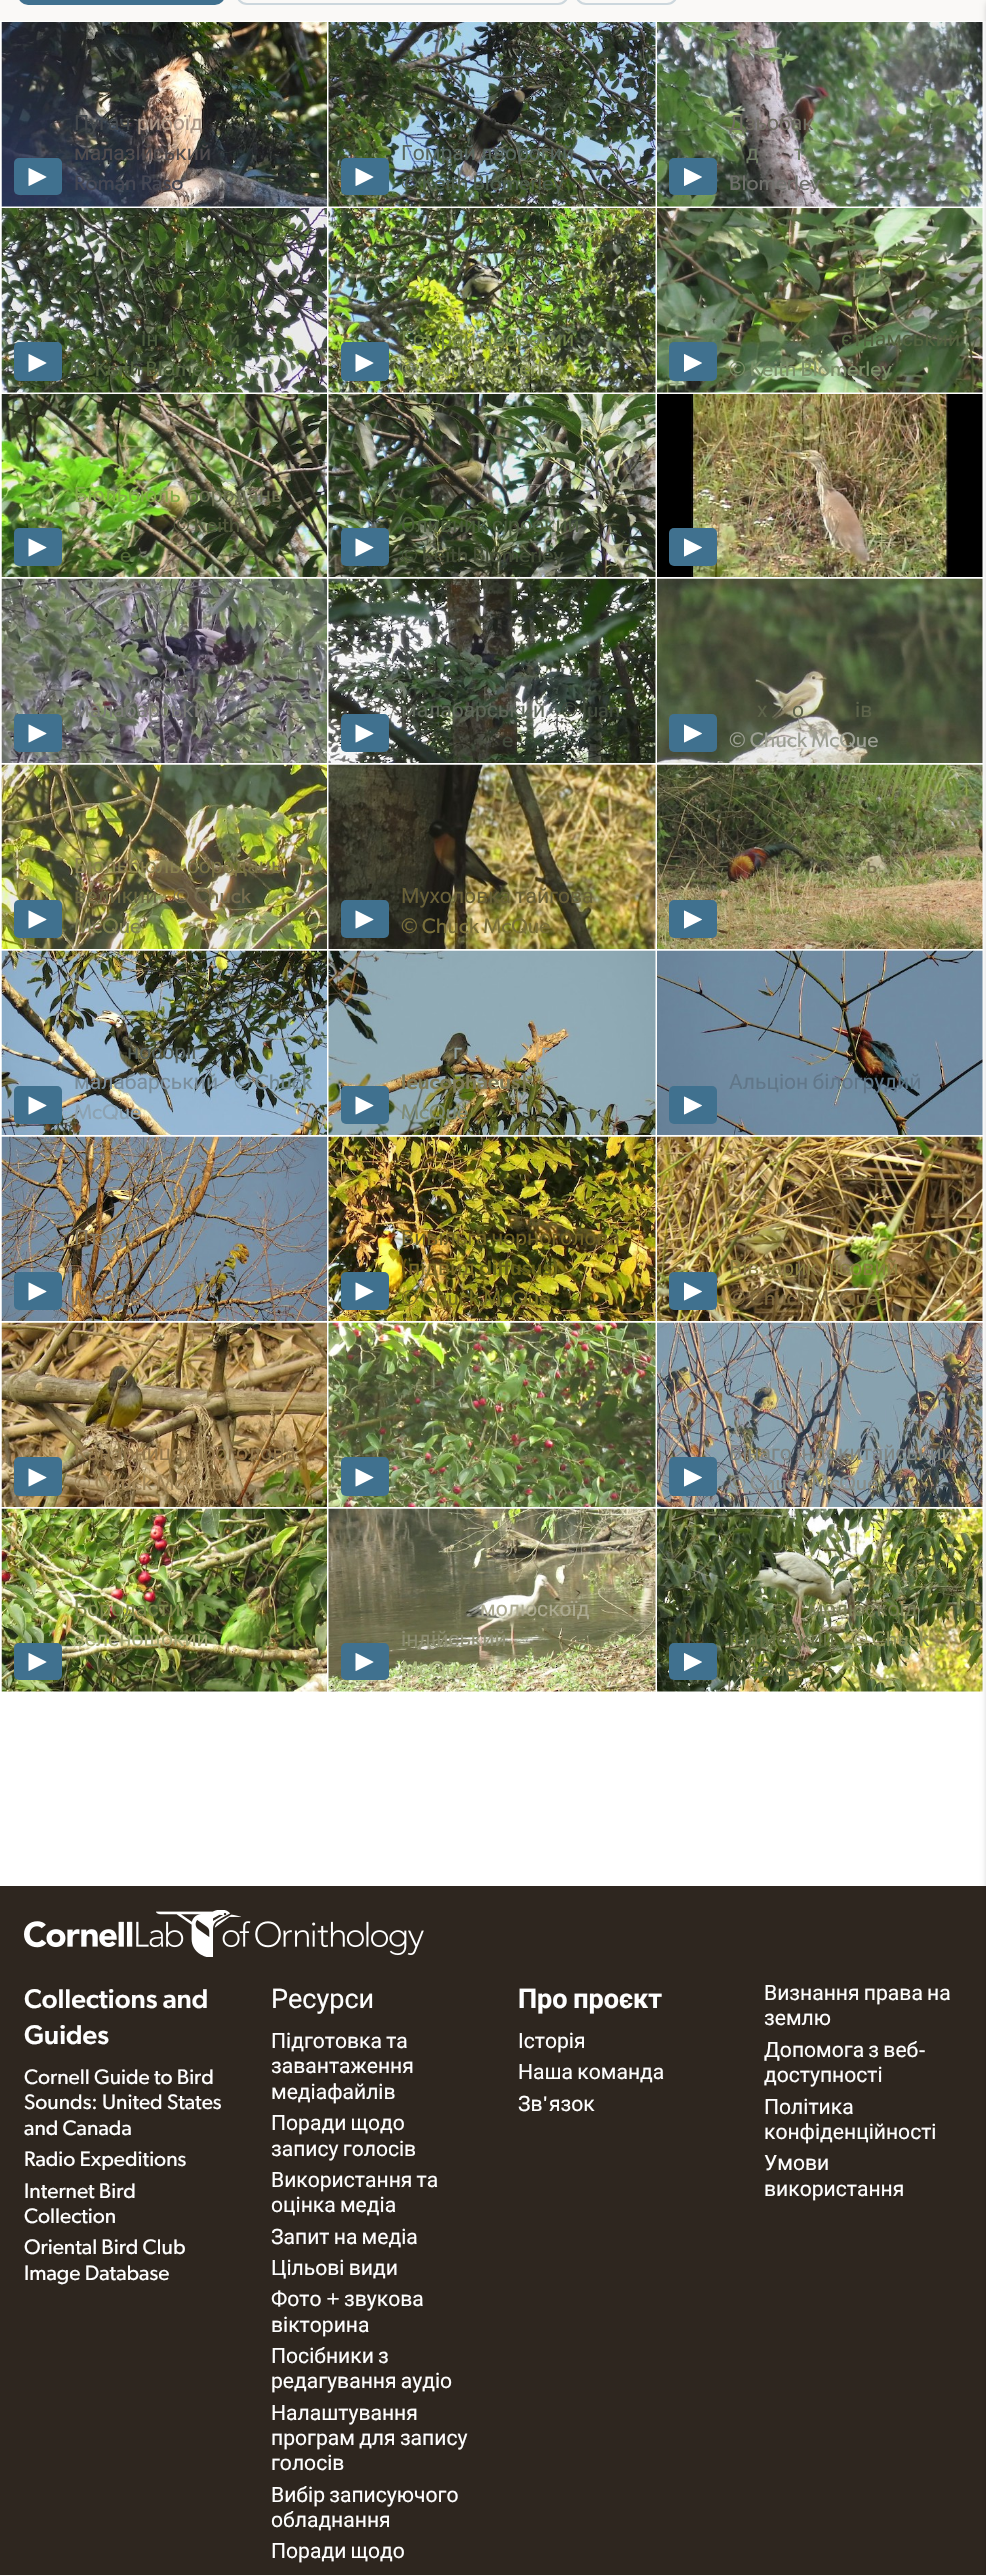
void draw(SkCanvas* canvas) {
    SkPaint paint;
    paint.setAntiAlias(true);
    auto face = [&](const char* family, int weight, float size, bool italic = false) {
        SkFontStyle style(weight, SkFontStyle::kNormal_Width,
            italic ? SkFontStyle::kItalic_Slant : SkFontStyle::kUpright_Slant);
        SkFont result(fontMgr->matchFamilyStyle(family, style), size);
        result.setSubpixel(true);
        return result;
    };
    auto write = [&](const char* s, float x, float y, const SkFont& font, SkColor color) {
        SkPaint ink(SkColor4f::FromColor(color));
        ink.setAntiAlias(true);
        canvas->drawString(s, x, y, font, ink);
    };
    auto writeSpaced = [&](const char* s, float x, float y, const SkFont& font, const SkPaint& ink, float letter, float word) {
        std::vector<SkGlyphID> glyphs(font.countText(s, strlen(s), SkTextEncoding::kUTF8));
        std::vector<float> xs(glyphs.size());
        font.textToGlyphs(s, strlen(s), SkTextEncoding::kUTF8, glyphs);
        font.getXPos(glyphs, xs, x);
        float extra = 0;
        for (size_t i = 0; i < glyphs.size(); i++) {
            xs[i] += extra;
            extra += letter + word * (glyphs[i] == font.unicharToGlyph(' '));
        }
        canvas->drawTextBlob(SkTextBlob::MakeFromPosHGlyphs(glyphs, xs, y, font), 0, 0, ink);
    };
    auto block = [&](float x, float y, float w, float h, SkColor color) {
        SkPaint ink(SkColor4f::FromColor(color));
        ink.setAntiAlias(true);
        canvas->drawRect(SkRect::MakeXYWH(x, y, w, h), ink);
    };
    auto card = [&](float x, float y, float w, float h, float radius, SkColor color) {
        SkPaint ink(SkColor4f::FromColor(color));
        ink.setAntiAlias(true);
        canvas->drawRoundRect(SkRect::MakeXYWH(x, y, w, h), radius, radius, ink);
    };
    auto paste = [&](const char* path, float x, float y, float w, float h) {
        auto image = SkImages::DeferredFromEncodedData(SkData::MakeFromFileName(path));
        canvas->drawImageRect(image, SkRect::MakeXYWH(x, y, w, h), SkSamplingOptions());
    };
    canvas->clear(SK_ColorWHITE);
    block(0, 0, 986, 21, SkColorSetRGB(250, 249, 247));
    card(18, -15, 207, 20, 15, SkColorSetRGB(64, 113, 143));
    paint.setStyle(SkPaint::kStroke_Style);
    paint.setStrokeWidth(2);
    paint.setColor(SkColorSetRGB(204, 215, 221));
    canvas->drawRoundRect(SkRect::MakeXYWH(237, -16, 331, 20), 14, 14, paint);
    canvas->drawRoundRect(SkRect::MakeXYWH(576, -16, 101, 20), 14, 14, paint);
    paste("pic1.png", 1, 22, 326, 185);
    card(14, 158, 48, 37, 5, SkColorSetRGB(64, 113, 143));
    paste("pic2.png", 28, 168, 19, 18);
    auto kFont1 = face("Roboto", 400, 21.1f);
    write("Пугач", 74, 130, kFont1, SkColorSetRGB(67, 72, 76));
    write("рибоїд", 137, 130, kFont1, SkColorSetRGB(170, 150, 134));
    write("малазійський", 74, 160, kFont1, SkColorSetRGB(80, 76, 78));
    auto kFont2 = face("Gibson", 400, 21.1f);
    write("Román Raso", 74, 190, kFont2, SkColorSetRGB(69, 71, 83));
    paste("pic3.png", 328, 22, 328, 185);
    card(341, 158, 48, 37, 5, SkColorSetRGB(64, 113, 143));
    paste("pic2.png", 355, 168, 19, 18);
    paint.setStyle(SkPaint::kFill_Style);
    paint.setColor(SkColorSetRGB(88, 103, 96));
    writeSpaced("Гомрай дворогий", 401, 160, kFont1, paint, 0, -1);
    write("© Keith Blomerley", 401, 190, kFont2, SkColorSetRGB(79, 94, 77));
    paste("pic4.png", 657, 22, 326, 185);
    card(669, 158, 48, 37, 5, SkColorSetRGB(64, 113, 143));
    paste("pic5.png", 684, 168, 18, 18);
    write("Дзьобак", 729, 130, kFont1, SkColorSetRGB(112, 110, 98));
    write("д", 746, 160, kFont1, SkColorSetRGB(113, 126, 102));
    write("т", 794, 160, kFont1, SkColorSetRGB(113, 126, 102));
    write("Blomerley", 729, 190, kFont2, SkColorSetRGB(111, 112, 107));
    paste("pic6.png", 1, 208, 326, 185);
    card(14, 342, 48, 39, 5, SkColorSetRGB(64, 113, 143));
    paste("pic2.png", 28, 354, 19, 18);
    paint.setColor(SkColorSetRGB(77, 93, 62));
    writeSpaced("ін", 141, 346, kFont1, paint, 0, -1);
    writeSpaced("й", 228, 346, kFont1, paint, 0, -1);
    write("© Keith Blomerley", 74, 376, kFont2, SkColorSetRGB(84, 99, 64));
    paste("pic7.png", 328, 208, 328, 185);
    card(341, 342, 48, 39, 5, SkColorSetRGB(64, 113, 143));
    paste("pic2.png", 355, 354, 19, 18);
    paint.setColor(SkColorSetRGB(113, 131, 72));
    writeSpaced("Гомрай дворогий", 401, 346, kFont1, paint, 0, -1);
    write("© Keith Blomerley", 401, 376, kFont2, SkColorSetRGB(130, 141, 85));
    paste("pic8.png", 657, 208, 326, 185);
    card(669, 342, 48, 39, 5, SkColorSetRGB(64, 113, 143));
    paste("pic5.png", 684, 354, 18, 18);
    write("єтнамський", 841, 346, kFont1, SkColorSetRGB(84, 99, 64));
    write("© Keith Blomerley", 729, 376, kFont2, SkColorSetRGB(125, 143, 105));
    paste("pic9.png", 1, 394, 326, 183);
    card(14, 528, 48, 38, 5, SkColorSetRGB(64, 113, 143));
    paste("pic10.png", 28, 538, 19, 19);
    write("Бюльбюль", 74, 502, kFont1, SkColorSetRGB(131, 171, 71));
    write("бородань", 187, 502, kFont1, SkColorSetRGB(108, 113, 82));
    write("© Keith", 173, 532, kFont2, SkColorSetRGB(80, 86, 59));
    write("e", 120, 562, kFont2, SkColorSetRGB(83, 105, 54));
    paste("pic11.png", 328, 394, 328, 183);
    card(341, 528, 48, 38, 5, SkColorSetRGB(64, 113, 143));
    paste("pic10.png", 355, 538, 19, 19);
    paint.setColor(SkColorSetRGB(77, 93, 62));
    writeSpaced("Оливник сіроокий", 401, 532, kFont1, paint, 0, -1);
    write("© Keith Blomerley", 401, 562, kFont2, SkColorSetRGB(68, 77, 55));
    paste("pic12.png", 657, 394, 326, 183);
    card(669, 528, 48, 38, 5, SkColorSetRGB(64, 113, 143));
    paste("pic13.png", 684, 538, 18, 19);
    paste("pic14.png", 1, 578, 326, 185);
    write("носоріг", 127, 688, kFont1, SkColorSetRGB(102, 101, 105));
    write("малабарський", 74, 717, kFont1, SkColorSetRGB(123, 123, 119));
    card(14, 714, 48, 38, 5, SkColorSetRGB(64, 113, 143));
    paste("pic10.png", 28, 724, 19, 19);
    paste("pic15.png", 328, 578, 328, 185);
    card(341, 714, 48, 38, 5, SkColorSetRGB(64, 113, 143));
    paste("pic10.png", 355, 724, 19, 19);
    write("малабарський", 401, 717, kFont1, SkColorSetRGB(95, 103, 89));
    write("© Juan", 561, 717, kFont2, SkColorSetRGB(67, 75, 61));
    write("e", 502, 747, kFont2, SkColorSetRGB(67, 75, 61));
    paste("pic16.png", 657, 578, 326, 185);
    card(669, 714, 48, 38, 5, SkColorSetRGB(64, 113, 143));
    paste("pic13.png", 684, 724, 18, 19);
    paint.setColor(SkColorSetRGB(93, 99, 74));
    writeSpaced("х", 757, 717, kFont1, paint, 0, -1);
    writeSpaced("о", 792, 717, kFont1, paint, 0, -1);
    writeSpaced("ів", 855, 717, kFont1, paint, 0, -1);
    write("© Chuck McQue", 729, 747, kFont2, SkColorSetRGB(156, 159, 147));
    paste("pic17.png", 1, 764, 326, 185);
    card(14, 900, 48, 38, 5, SkColorSetRGB(64, 113, 143));
    paste("pic10.png", 28, 910, 19, 19);
    write("Бюльбюль", 74, 873, kFont1, SkColorSetRGB(137, 129, 79));
    auto kFont3 = face("Gibson", 500, 21.1f);
    write("-", 180, 873, kFont3, SkColorSetRGB(162, 156, 77));
    write("бородань", 187, 873, kFont1, SkColorSetRGB(122, 115, 70));
    write("великий", 74, 903, kFont1, SkColorSetRGB(106, 103, 65));
    write("© Chuck", 173, 903, kFont2, SkColorSetRGB(118, 109, 79));
    write("McQue", 74, 933, kFont2, SkColorSetRGB(127, 128, 78));
    paste("pic18.png", 657, 764, 326, 185);
    paint.setColor(SkColorSetRGB(118, 109, 79));
    writeSpaced("ь", 866, 873, kFont1, paint, 0, -1);
    card(669, 900, 48, 38, 5, SkColorSetRGB(64, 113, 143));
    paste("pic13.png", 684, 910, 18, 19);
    paste("pic19.png", 328, 764, 328, 185);
    card(341, 900, 48, 38, 5, SkColorSetRGB(64, 113, 143));
    paste("pic10.png", 355, 910, 19, 19);
    paint.setColor(SkColorSetRGB(104, 96, 56));
    writeSpaced("Мухоловка тайгова", 401, 903, kFont1, paint, 0, -1);
    write("© Chuck McQue", 401, 933, kFont2, SkColorSetRGB(120, 110, 58));
    paste("pic20.png", 1, 950, 326, 185);
    card(14, 1086, 48, 38, 5, SkColorSetRGB(64, 113, 143));
    paste("pic10.png", 28, 1096, 19, 19);
    write("-", 121, 1059, kFont3, SkColorSetRGB(45, 44, 30));
    write("носоріг", 127, 1059, kFont1, SkColorSetRGB(87, 97, 91));
    write("малабарський", 74, 1089, kFont1, SkColorSetRGB(121, 141, 155));
    write("© Chuck", 234, 1089, kFont2, SkColorSetRGB(114, 137, 147));
    write("McQue", 74, 1119, kFont2, SkColorSetRGB(140, 162, 178));
    paste("pic21.png", 328, 950, 328, 185);
    card(341, 1086, 48, 38, 5, SkColorSetRGB(64, 113, 143));
    paste("pic10.png", 355, 1096, 19, 19);
    paint.setColor(SkColorSetRGB(143, 160, 159));
    writeSpaced("г", 453, 1059, kFont1, paint, 0, -1);
    write("[", 535, 1059, kFont3, SkColorSetRGB(208, 171, 114));
    write("г", 541, 1059, kFont1, SkColorSetRGB(149, 168, 172));
    write("leucophaeus]", 401, 1089, kFont3, SkColorSetRGB(127, 123, 89));
    write("McQue", 401, 1119, kFont2, SkColorSetRGB(126, 138, 115));
    paste("pic22.png", 657, 950, 326, 185);
    paint.setColor(SkColorSetRGB(96, 118, 136));
    writeSpaced("Альціон білогрудий", 729, 1089, kFont1, paint, 0, -1);
    card(669, 1086, 48, 38, 5, SkColorSetRGB(64, 113, 143));
    paste("pic13.png", 684, 1096, 18, 19);
    paste("pic23.png", 1, 1136, 326, 185);
    card(14, 1272, 48, 38, 5, SkColorSetRGB(64, 113, 143));
    paste("pic10.png", 28, 1282, 19, 19);
    write("Птах", 74, 1245, kFont1, SkColorSetRGB(132, 122, 102));
    write("-", 121, 1245, kFont3, SkColorSetRGB(118, 109, 79));
    write("McQue", 74, 1305, kFont2, SkColorSetRGB(135, 114, 86));
    paste("pic24.png", 328, 1136, 328, 185);
    card(341, 1272, 48, 38, 5, SkColorSetRGB(64, 113, 143));
    paste("pic10.png", 355, 1282, 19, 19);
    paint.setColor(SkColorSetRGB(112, 98, 37));
    writeSpaced("Вивільга чорноголова", 401, 1245, kFont1, paint, 0, -1);
    write("(", 401, 1275, kFont3, SkColorSetRGB(99, 79, 19));
    write("підвид", 408, 1275, kFont1, SkColorSetRGB(123, 107, 39));
    write("diffusus)", 479, 1275, kFont3, SkColorSetRGB(103, 100, 26));
    write("© Chuck McQue", 401, 1305, kFont2, SkColorSetRGB(116, 109, 33));
    paste("pic25.png", 657, 1136, 326, 185);
    card(669, 1272, 48, 38, 5, SkColorSetRGB(64, 113, 143));
    paste("pic13.png", 684, 1282, 18, 19);
    paint.setColor(SkColorSetRGB(137, 128, 65));
    writeSpaced("Вівчарик лісовий", 729, 1275, kFont1, paint, 0, -1);
    write("© Chuck McQue", 729, 1305, kFont2, SkColorSetRGB(122, 103, 62));
    paste("pic26.png", 1, 1322, 326, 185);
    card(14, 1457, 48, 39, 5, SkColorSetRGB(64, 113, 143));
    paste("pic10.png", 28, 1468, 19, 19);
    paint.setColor(SkColorSetRGB(144, 118, 75));
    writeSpaced("Канарниця сіроголова", 74, 1460, kFont1, paint, 0, -1);
    write("© Chuck McQue", 74, 1490, kFont2, SkColorSetRGB(159, 133, 88));
    paste("pic27.png", 328, 1322, 328, 185);
    card(341, 1457, 48, 39, 5, SkColorSetRGB(64, 113, 143));
    paste("pic10.png", 355, 1468, 19, 19);
    paste("pic28.png", 657, 1322, 326, 185);
    card(669, 1457, 48, 39, 5, SkColorSetRGB(64, 113, 143));
    paste("pic13.png", 684, 1468, 18, 19);
    paint.setColor(SkColorSetRGB(126, 132, 129));
    writeSpaced("Вінаго індокитайський", 729, 1460, kFont1, paint, 0, -1);
    write("© Chuck McQue", 729, 1490, kFont2, SkColorSetRGB(136, 141, 136));
    paste("pic29.png", 1, 1508, 326, 184);
    write("Бородастик", 74, 1616, kFont1, SkColorSetRGB(126, 135, 75));
    write("зеленощокий", 74, 1646, kFont1, SkColorSetRGB(162, 166, 114));
    write("h", 259, 1646, kFont2, SkColorSetRGB(101, 121, 51));
    write("k", 292, 1646, kFont2, SkColorSetRGB(101, 121, 51));
    card(14, 1643, 48, 37, 5, SkColorSetRGB(64, 113, 143));
    paste("pic2.png", 28, 1653, 19, 18);
    paste("pic30.png", 328, 1508, 328, 184);
    card(341, 1643, 48, 37, 5, SkColorSetRGB(64, 113, 143));
    paste("pic2.png", 355, 1653, 19, 18);
    write("молюскоїд", 480, 1616, kFont1, SkColorSetRGB(172, 170, 145));
    write("індійський", 401, 1646, kFont1, SkColorSetRGB(141, 141, 114));
    write("McQue", 401, 1676, kFont2, SkColorSetRGB(174, 185, 130));
    paste("pic31.png", 657, 1508, 326, 184);
    card(669, 1643, 48, 37, 5, SkColorSetRGB(64, 113, 143));
    paste("pic5.png", 684, 1653, 18, 18);
    write("молюскоїд", 808, 1616, kFont1, SkColorSetRGB(121, 126, 85));
    write("індійський", 729, 1646, kFont1, SkColorSetRGB(104, 113, 70));
    write("© Chuck", 851, 1646, kFont2, SkColorSetRGB(142, 146, 89));
    write("McQue", 729, 1676, kFont2, SkColorSetRGB(104, 113, 70));
    block(0, 1886, 986, 689, SkColorSetRGB(46, 38, 31));
    paint.setColor(SkColorSetARGB(51, 0, 0, 0));
    paint.setMaskFilter(SkMaskFilter::MakeBlur(kNormal_SkBlurStyle, 3));
    canvas->drawRect(SkRect::MakeXYWH(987, 3, 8, 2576), paint);
    paint.setMaskFilter(nullptr);
    paste("pic32.png", 24, 1910, 400, 47);
    auto kFont4 = face("Gibson", 500, 27);
    write("Collections and", 24, 2008, kFont4, SK_ColorWHITE);
    write("Guides", 24, 2044, kFont4, SK_ColorWHITE);
    write("Cornell Guide to Bird", 24, 2084, kFont2, SK_ColorWHITE);
    write("Sounds: United States", 24, 2109, kFont2, SK_ColorWHITE);
    write("and Canada", 24, 2135, kFont2, SK_ColorWHITE);
    write("Radio Expeditions", 24, 2166, kFont2, SK_ColorWHITE);
    write("Internet Bird", 24, 2198, kFont2, SK_ColorWHITE);
    write("Collection", 24, 2223, kFont2, SK_ColorWHITE);
    write("Oriental Bird Club", 24, 2254, kFont2, SK_ColorWHITE);
    write("Image Database", 24, 2280, kFont2, SK_ColorWHITE);
    auto kFont5 = face("Roboto", 400, 27);
    write("Ресурси", 271, 2008, kFont5, SK_ColorWHITE);
    paint.setColor(SK_ColorWHITE);
    writeSpaced("Підготовка та", 271, 2048, kFont1, paint, 0, -1);
    write("завантаження", 271, 2073, kFont1, SK_ColorWHITE);
    write("медіафайлів", 271, 2099, kFont1, SK_ColorWHITE);
    writeSpaced("Поради щодо", 271, 2130, kFont1, paint, 0, -1);
    writeSpaced("запису голосів", 271, 2156, kFont1, paint, 0, -1);
    writeSpaced("Використання та", 271, 2187, kFont1, paint, 0, -1);
    writeSpaced("оцінка медіа", 271, 2212, kFont1, paint, 0, -1);
    writeSpaced("Запит на медіа", 271, 2244, kFont1, paint, 0, -1);
    writeSpaced("Цільові види", 271, 2275, kFont1, paint, 0, -1);
    write("Фото", 271, 2306, kFont1, SK_ColorWHITE);
    write("+", 326, 2306, kFont2, SK_ColorWHITE);
    write("звукова", 344, 2306, kFont1, SK_ColorWHITE);
    write("вікторина", 271, 2332, kFont1, SK_ColorWHITE);
    writeSpaced("Посібники з", 271, 2363, kFont1, paint, 0, -1);
    writeSpaced("редагування аудіо", 271, 2388, kFont1, paint, 0, -1);
    write("Налаштування", 271, 2420, kFont1, SK_ColorWHITE);
    writeSpaced("програм для запису", 271, 2445, kFont1, paint, 0, -1);
    write("голосів", 271, 2470, kFont1, SK_ColorWHITE);
    writeSpaced("Вибір записуючого", 271, 2502, kFont1, paint, 0, -1);
    write("обладнання", 271, 2527, kFont1, SK_ColorWHITE);
    writeSpaced("Поради щодо", 271, 2558, kFont1, paint, 0, -1);
    auto kFont6 = face("Roboto", 700, 27);
    writeSpaced("Про проєкт", 518, 2008, kFont6, paint, 0, -1);
    write("Історія", 518, 2048, kFont1, SK_ColorWHITE);
    writeSpaced("Наша команда", 518, 2079, kFont1, paint, 0, -1);
    write("Зв", 518, 2111, kFont1, SK_ColorWHITE);
    write("'", 542, 2111, kFont2, SK_ColorWHITE);
    write("язок", 549, 2111, kFont1, SK_ColorWHITE);
    writeSpaced("Визнання права на", 764, 2000, kFont1, paint, 0, -1);
    write("землю", 764, 2025, kFont1, SK_ColorWHITE);
    writeSpaced("Допомога з веб", 764, 2057, kFont1, paint, 0, -1);
    write("-", 919, 2057, kFont2, SK_ColorWHITE);
    write("доступності", 764, 2082, kFont1, SK_ColorWHITE);
    write("Політика", 764, 2114, kFont1, SK_ColorWHITE);
    write("конфіденційності", 764, 2139, kFont1, SK_ColorWHITE);
    write("Умови", 764, 2170, kFont1, SK_ColorWHITE);
    write("використання", 764, 2196, kFont1, SK_ColorWHITE);
}
